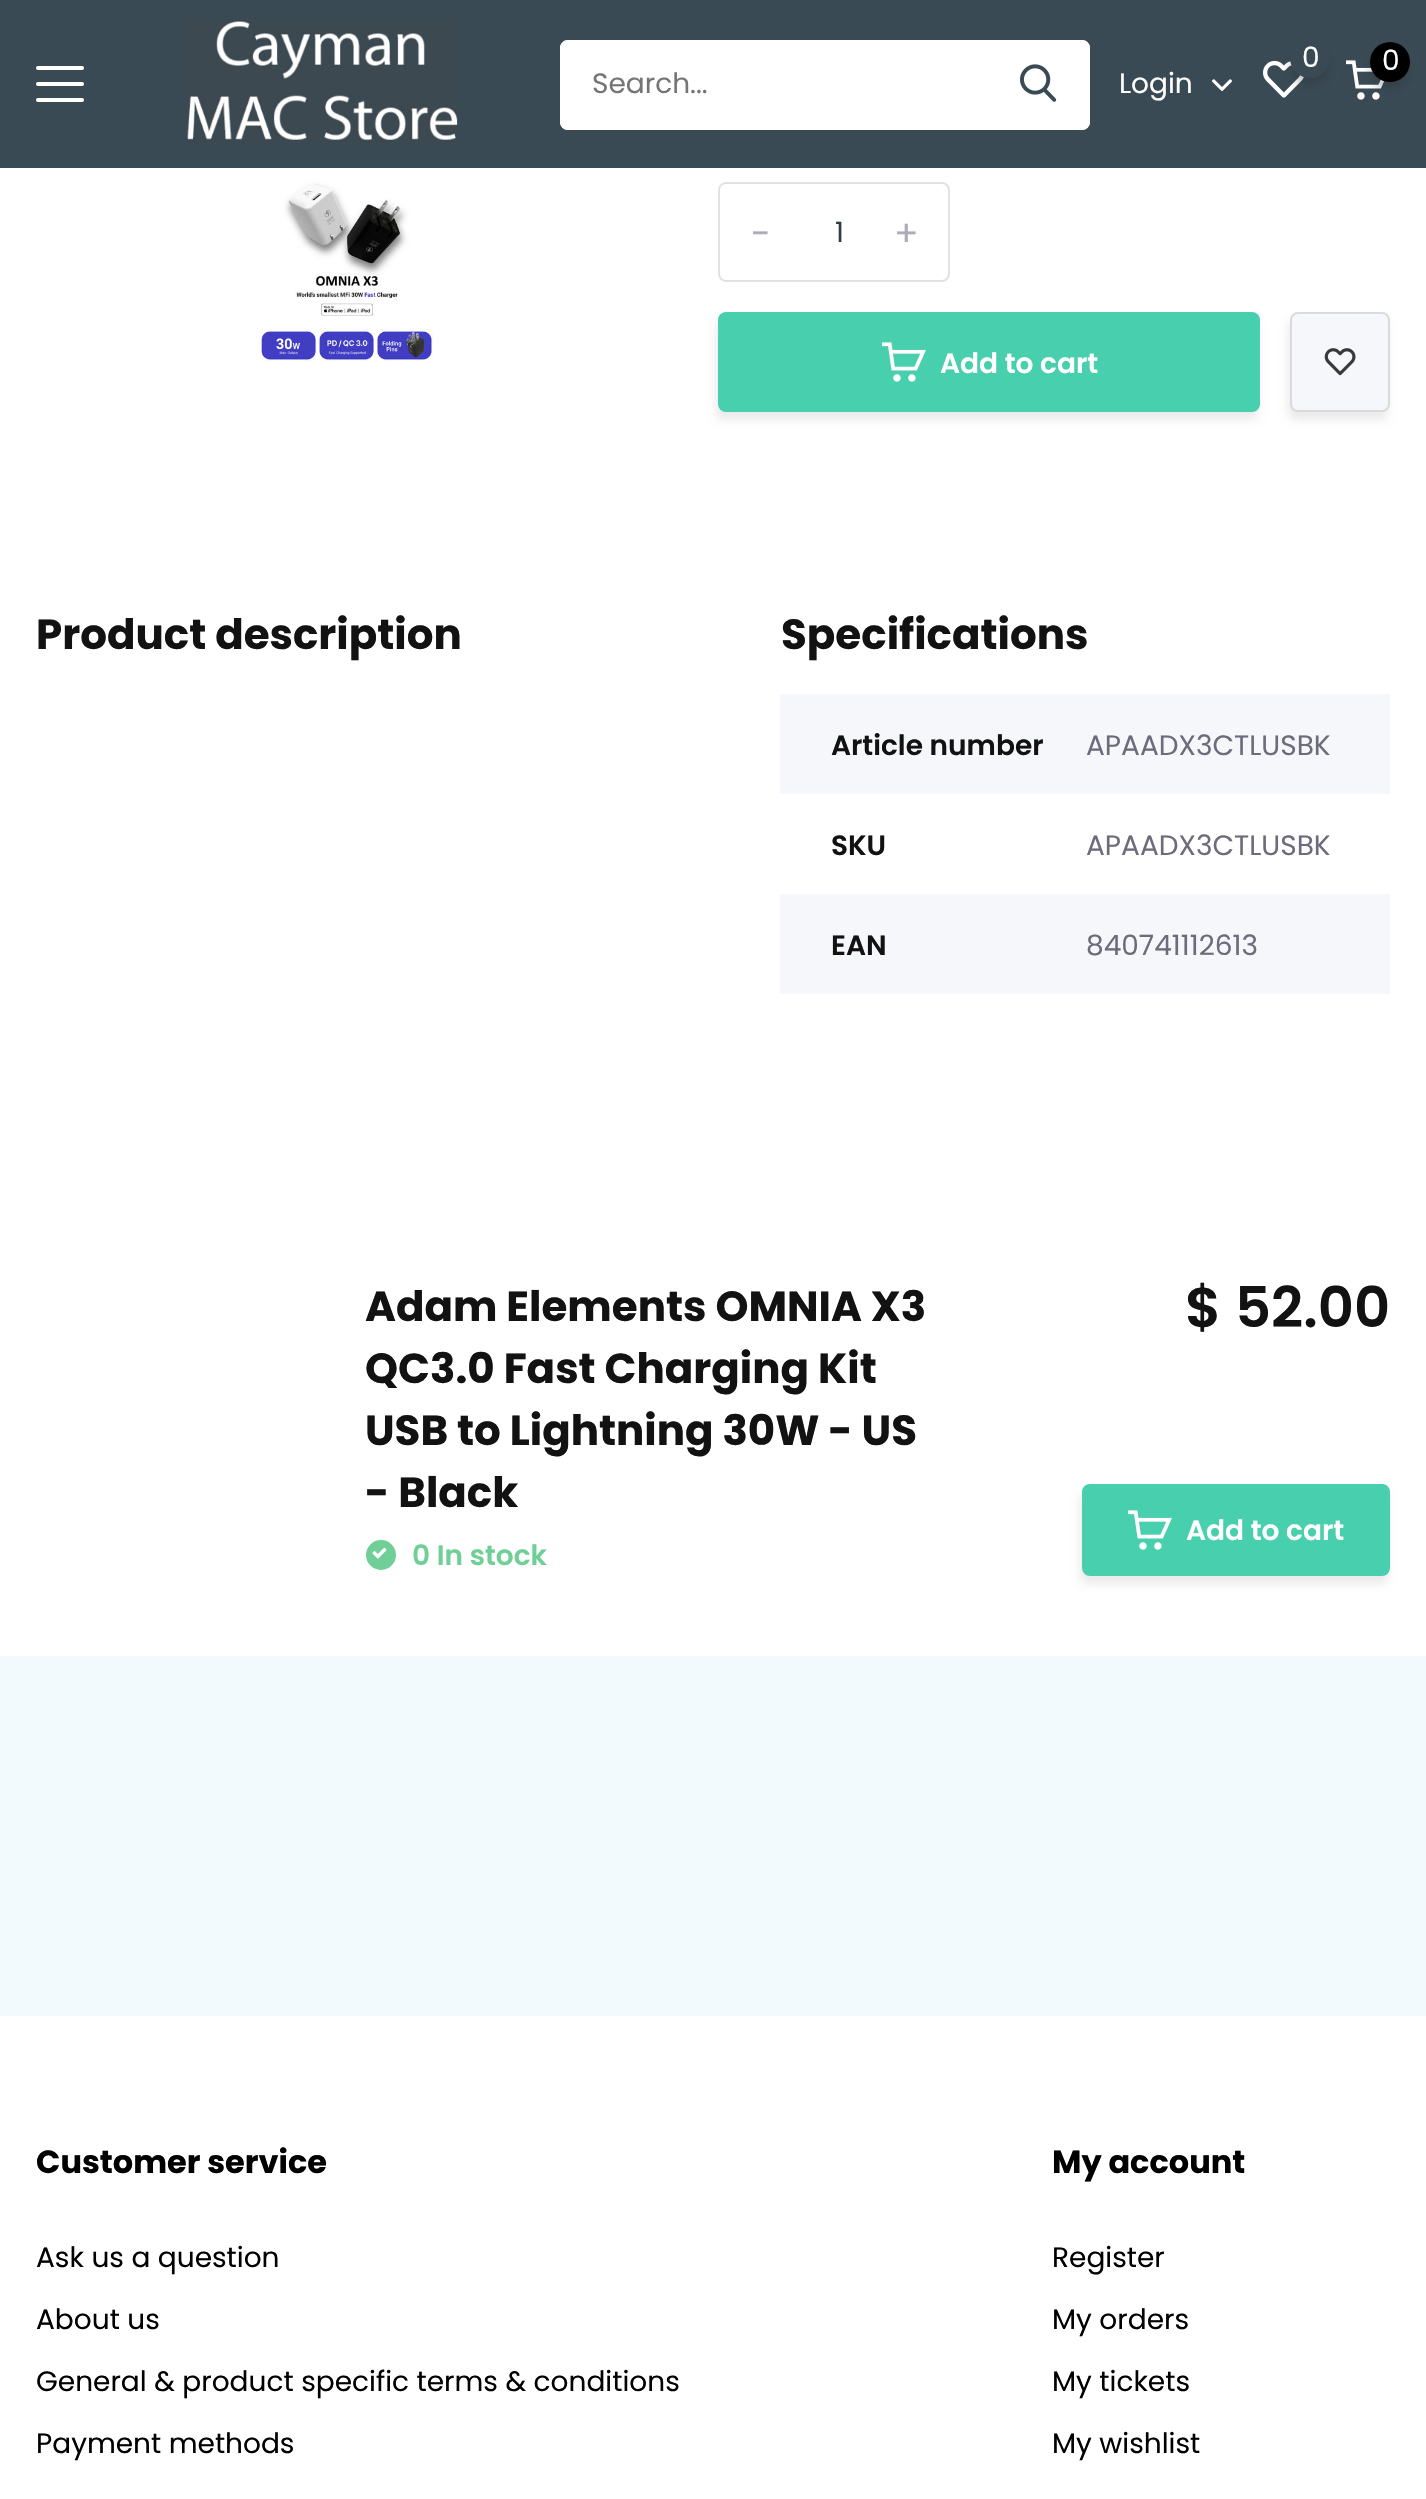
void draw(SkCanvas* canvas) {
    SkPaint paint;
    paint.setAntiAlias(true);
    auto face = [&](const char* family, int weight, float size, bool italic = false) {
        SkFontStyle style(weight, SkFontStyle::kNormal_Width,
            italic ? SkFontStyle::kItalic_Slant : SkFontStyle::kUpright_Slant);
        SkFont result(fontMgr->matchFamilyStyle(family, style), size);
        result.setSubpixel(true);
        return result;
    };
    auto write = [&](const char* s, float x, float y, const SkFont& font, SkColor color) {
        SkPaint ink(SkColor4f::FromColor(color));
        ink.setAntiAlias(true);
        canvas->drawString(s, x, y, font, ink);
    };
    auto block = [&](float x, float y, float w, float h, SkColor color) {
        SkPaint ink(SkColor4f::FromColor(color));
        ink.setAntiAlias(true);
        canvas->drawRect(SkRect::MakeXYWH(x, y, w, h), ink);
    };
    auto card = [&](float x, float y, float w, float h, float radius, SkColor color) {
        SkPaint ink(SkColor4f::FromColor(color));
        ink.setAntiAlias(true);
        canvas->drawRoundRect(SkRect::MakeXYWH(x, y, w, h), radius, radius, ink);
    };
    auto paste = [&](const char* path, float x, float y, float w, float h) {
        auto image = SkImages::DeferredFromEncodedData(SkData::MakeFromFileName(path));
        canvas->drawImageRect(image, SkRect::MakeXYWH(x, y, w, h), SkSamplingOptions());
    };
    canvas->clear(SK_ColorWHITE);
    block(0, 0, 1426, 168, SkColorSetRGB(57, 74, 84));
    card(36, 66, 48, 4, 2, SK_ColorWHITE);
    card(36, 82, 48, 4, 2, SK_ColorWHITE);
    card(36, 98, 48, 4, 2, SK_ColorWHITE);
    paste("pic1.png", 186, 18, 272, 125);
    paste("pic2.png", 1263, 60, 41, 38);
    paint.setColor(SkColorSetARGB(64, 40, 40, 48));
    paint.setMaskFilter(SkMaskFilter::MakeBlur(kNormal_SkBlurStyle, 4));
    canvas->drawRoundRect(SkRect::MakeXYWH(1290, 46, 40, 40), 20, 20, paint);
    paint.setMaskFilter(nullptr);
    paint.setColor(SkColorSetRGB(57, 74, 84));
    canvas->drawCircle(1310, 58, 20, paint);
    auto kFont1 = face("Poppins", 400, 28);
    write("0", 1302, 67, kFont1, SK_ColorWHITE);
    paste("pic3.png", 1346, 60, 39, 40);
    paint.setColor(SkColorSetARGB(64, 40, 40, 48));
    paint.setMaskFilter(SkMaskFilter::MakeBlur(kNormal_SkBlurStyle, 4));
    canvas->drawRoundRect(SkRect::MakeXYWH(1370, 50, 40, 40), 20, 20, paint);
    paint.setMaskFilter(nullptr);
    paint.setColor(SK_ColorBLACK);
    canvas->drawCircle(1390, 62, 20, paint);
    write("0", 1382, 70, kFont1, SK_ColorWHITE);
    paint.setColor(SK_ColorWHITE);
    canvas->drawPath(SkPathBuilder().moveTo(568, 40).lineTo(990, 40).lineTo(990, 130).lineTo(568, 130).cubicTo(563.5f, 130, 560, 126.5f, 560, 122).lineTo(560, 48).cubicTo(560, 43.5f, 563.5f, 40, 568, 40).close().detach(), paint);
    canvas->drawPath(SkPathBuilder(SkPathFillType::kEvenOdd).moveTo(568, 40).lineTo(990, 40).lineTo(990, 130).lineTo(568, 130).cubicTo(564, 130, 560, 126, 560, 122).lineTo(560, 48).cubicTo(560, 44, 564, 40, 568, 40).close().moveTo(568, 42).lineTo(990, 42).lineTo(990, 128).lineTo(568, 128).cubicTo(565, 128, 562, 125, 562, 122).lineTo(562, 48).cubicTo(562, 45, 565, 42, 568, 42).close().detach(), paint);
    write("Search...", 592, 93, kFont1, SkColorSetRGB(117, 117, 117));
    canvas->drawPath(SkPathBuilder().moveTo(990, 40).lineTo(1082, 40).cubicTo(1086.5f, 40, 1090, 43.5f, 1090, 48).lineTo(1090, 122).cubicTo(1090, 126.5f, 1086.5f, 130, 1082, 130).lineTo(990, 130).close().detach(), paint);
    canvas->drawPath(SkPathBuilder(SkPathFillType::kEvenOdd).moveTo(990, 40).lineTo(1082, 40).cubicTo(1086, 40, 1090, 44, 1090, 48).lineTo(1090, 122).cubicTo(1090, 126, 1086, 130, 1082, 130).lineTo(990, 130).close().moveTo(990, 42).lineTo(1082, 42).cubicTo(1085, 42, 1088, 45, 1088, 48).lineTo(1088, 122).cubicTo(1088, 125, 1085, 128, 1082, 128).lineTo(990, 128).close().detach(), paint);
    paste("pic4.png", 1020, 64, 37, 38);
    write("Login", 1119, 93, kFont1, SK_ColorWHITE);
    paste("pic5.png", 1212, 79, 20, 12);
    paste("pic6.png", 260, 168, 174, 194);
    paint.setStyle(SkPaint::kStroke_Style);
    paint.setStrokeWidth(2);
    paint.setColor(SkColorSetRGB(226, 226, 226));
    canvas->drawRoundRect(SkRect::MakeXYWH(719, 183, 230, 98), 7, 7, paint);
    write("1", 835, 242, kFont1, SkColorSetRGB(48, 60, 67));
    auto kFont2 = face("Poppins", 400, 36);
    write("-", 751, 246, kFont2, SkColorSetRGB(173, 173, 186));
    write("+", 894, 246, kFont2, SkColorSetRGB(173, 173, 186));
    paint.setStyle(SkPaint::kFill_Style);
    paint.setColor(SkColorSetARGB(20, 0, 0, 0));
    paint.setMaskFilter(SkMaskFilter::MakeBlur(kNormal_SkBlurStyle, 4));
    canvas->drawRoundRect(SkRect::MakeXYWH(716, 320, 542, 100), 8, 8, paint);
    paint.setMaskFilter(nullptr);
    card(718, 312, 542, 100, 8, SkColorSetRGB(72, 207, 173));
    paste("pic7.png", 882, 342, 44, 40);
    auto kFont3 = face("Poppins", 600, 28);
    write("Add to cart", 940, 373, kFont3, SK_ColorWHITE);
    paint.setMaskFilter(SkMaskFilter::MakeBlur(kNormal_SkBlurStyle, 4));
    canvas->drawRoundRect(SkRect::MakeXYWH(1288, 320, 100, 100), 8, 8, paint);
    paint.setMaskFilter(nullptr);
    paint.setColor(SkColorSetRGB(245, 247, 250));
    canvas->drawRoundRect(SkRect::MakeXYWH(1291, 313, 98, 98), 7, 7, paint);
    paint.setStyle(SkPaint::kStroke_Style);
    paint.setColor(SkColorSetRGB(218, 218, 218));
    canvas->drawRoundRect(SkRect::MakeXYWH(1291, 313, 98, 98), 7, 7, paint);
    paste("pic8.png", 1324, 348, 32, 28);
    auto kFont4 = face("Poppins", 700, 42);
    write("Product description", 36, 649, kFont4, SkColorSetRGB(18, 18, 18));
    write("Specifications", 781, 649, kFont4, SkColorSetRGB(18, 18, 18));
    block(780, 694, 610, 100, SkColorSetRGB(245, 247, 250));
    write("Article number", 831, 755, kFont3, SkColorSetRGB(18, 18, 18));
    write("APAADX3CTLUSBK", 1086, 755, kFont1, SkColorSetRGB(108, 108, 124));
    write("SKU", 831, 855, kFont3, SkColorSetRGB(18, 18, 18));
    write("APAADX3CTLUSBK", 1086, 855, kFont1, SkColorSetRGB(108, 108, 124));
    block(780, 894, 610, 100, SkColorSetRGB(245, 247, 250));
    write("EAN", 831, 955, kFont3, SkColorSetRGB(18, 18, 18));
    write("840741112613", 1086, 955, kFont1, SkColorSetRGB(108, 108, 124));
    write("Adam Elements OMNIA X3", 365, 1321, kFont4, SkColorSetRGB(18, 18, 18));
    write("QC3.0 Fast Charging Kit", 365, 1383, kFont4, SkColorSetRGB(18, 18, 18));
    write("USB to Lightning 30W - US", 365, 1445, kFont4, SkColorSetRGB(18, 18, 18));
    write("- Black", 365, 1507, kFont4, SkColorSetRGB(18, 18, 18));
    paint.setStyle(SkPaint::kFill_Style);
    paint.setColor(SkColorSetRGB(111, 207, 151));
    canvas->drawCircle(381, 1555, 15, paint);
    paste("pic9.png", 372, 1547, 15, 12);
    write("0 In stock", 412, 1565, kFont3, SkColorSetRGB(111, 207, 151));
    auto kFont5 = face("Poppins", 600, 56);
    write("$ 52.00", 1185, 1327, kFont5, SkColorSetRGB(18, 18, 18));
    paint.setColor(SkColorSetARGB(20, 0, 0, 0));
    paint.setMaskFilter(SkMaskFilter::MakeBlur(kNormal_SkBlurStyle, 4));
    canvas->drawRoundRect(SkRect::MakeXYWH(1080, 1492, 308, 92), 8, 8, paint);
    paint.setMaskFilter(nullptr);
    card(1082, 1484, 308, 92, 8, SkColorSetRGB(72, 207, 173));
    paste("pic7.png", 1128, 1510, 44, 40);
    write("Add to cart", 1186, 1540, kFont3, SK_ColorWHITE);
    block(0, 1656, 1426, 360, SkColorSetRGB(242, 250, 254));
    auto kFont6 = face("Poppins", 700, 32);
    write("Customer service", 36, 2173, kFont6, SK_ColorBLACK);
    write("Ask us a question", 36, 2267, kFont1, SK_ColorBLACK);
    write("About us", 36, 2329, kFont1, SK_ColorBLACK);
    write("General & product specific terms & conditions", 36, 2391, kFont1, SK_ColorBLACK);
    write("Payment methods", 36, 2453, kFont1, SK_ColorBLACK);
    write("My account", 1052, 2173, kFont6, SK_ColorBLACK);
    write("Register", 1052, 2267, kFont1, SK_ColorBLACK);
    write("My orders", 1052, 2329, kFont1, SK_ColorBLACK);
    write("My tickets", 1052, 2391, kFont1, SK_ColorBLACK);
    write("My wishlist", 1052, 2453, kFont1, SK_ColorBLACK);
}
